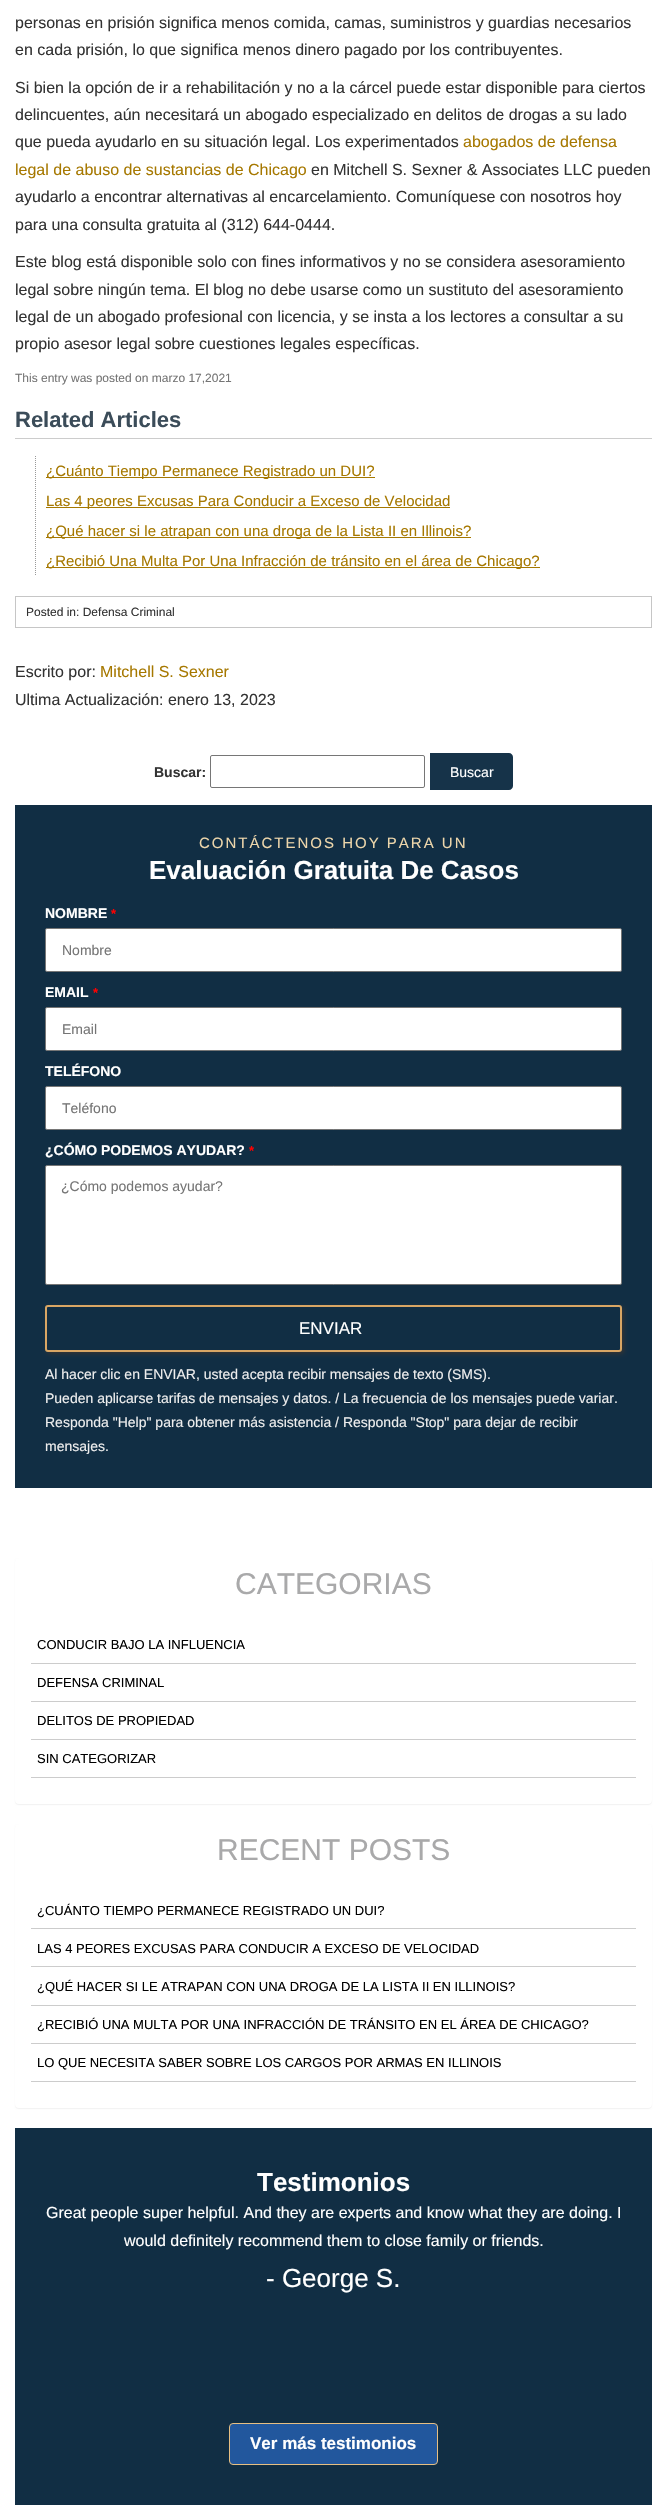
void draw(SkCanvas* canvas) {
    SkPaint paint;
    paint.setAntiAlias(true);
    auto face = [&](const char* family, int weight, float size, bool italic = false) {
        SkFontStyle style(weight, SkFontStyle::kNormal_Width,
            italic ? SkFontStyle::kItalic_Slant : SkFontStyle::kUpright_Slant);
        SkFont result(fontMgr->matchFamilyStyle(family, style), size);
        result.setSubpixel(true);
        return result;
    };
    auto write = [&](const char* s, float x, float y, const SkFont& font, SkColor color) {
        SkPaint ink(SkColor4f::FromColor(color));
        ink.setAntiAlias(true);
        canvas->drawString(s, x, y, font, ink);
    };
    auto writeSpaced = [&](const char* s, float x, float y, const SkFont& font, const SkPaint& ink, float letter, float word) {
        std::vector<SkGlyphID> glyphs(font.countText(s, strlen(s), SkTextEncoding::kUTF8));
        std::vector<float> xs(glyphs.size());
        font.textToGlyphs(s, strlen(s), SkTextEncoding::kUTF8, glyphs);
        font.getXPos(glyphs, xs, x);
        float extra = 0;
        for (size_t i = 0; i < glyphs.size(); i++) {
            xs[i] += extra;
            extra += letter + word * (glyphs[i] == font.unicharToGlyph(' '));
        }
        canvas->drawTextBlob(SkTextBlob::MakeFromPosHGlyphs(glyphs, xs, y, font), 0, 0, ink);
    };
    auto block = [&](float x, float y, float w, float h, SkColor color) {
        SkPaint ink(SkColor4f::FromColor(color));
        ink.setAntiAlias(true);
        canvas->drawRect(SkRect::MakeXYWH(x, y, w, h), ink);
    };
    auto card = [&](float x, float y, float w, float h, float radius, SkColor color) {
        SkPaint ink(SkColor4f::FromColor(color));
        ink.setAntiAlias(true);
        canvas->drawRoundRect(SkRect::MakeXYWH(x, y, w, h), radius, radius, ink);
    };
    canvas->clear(SK_ColorWHITE);
    auto kFont1 = face("Liberation Sans", 400, 16);
    write("personas en prisión significa menos comida, camas, suministros y guardias necesarios", 15, 28, kFont1, SkColorSetRGB(51, 51, 51));
    write("en cada prisión, lo que significa menos dinero pagado por los contribuyentes.", 15, 55, kFont1, SkColorSetRGB(51, 51, 51));
    write("Si bien la opción de ir a rehabilitación y no a la cárcel puede estar disponible para ciertos", 15, 93, kFont1, SkColorSetRGB(51, 51, 51));
    write("delincuentes, aún necesitará un abogado especializado en delitos de drogas a su lado", 15, 120, kFont1, SkColorSetRGB(51, 51, 51));
    write("que pueda ayudarlo en su situación legal. Los experimentados", 15, 147, kFont1, SkColorSetRGB(51, 51, 51));
    write("abogados de defensa", 463, 147, kFont1, SkColorSetRGB(166, 120, 0));
    write("legal de abuso de sustancias de Chicago", 15, 175, kFont1, SkColorSetRGB(166, 120, 0));
    write("en Mitchell S. Sexner & Associates LLC pueden", 311, 175, kFont1, SkColorSetRGB(51, 51, 51));
    write("ayudarlo a encontrar alternativas al encarcelamiento. Comuníquese con nosotros hoy", 15, 202, kFont1, SkColorSetRGB(51, 51, 51));
    write("para una consulta gratuita al (312) 644-0444.", 15, 230, kFont1, SkColorSetRGB(51, 51, 51));
    write("Este blog está disponible solo con fines informativos y no se considera asesoramiento", 15, 267, kFont1, SkColorSetRGB(51, 51, 51));
    write("legal sobre ningún tema. El blog no debe usarse como un sustituto del asesoramiento", 15, 295, kFont1, SkColorSetRGB(51, 51, 51));
    write("legal de un abogado profesional con licencia, y se insta a los lectores a consultar a su", 15, 322, kFont1, SkColorSetRGB(51, 51, 51));
    write("propio asesor legal sobre cuestiones legales específicas.", 15, 349, kFont1, SkColorSetRGB(51, 51, 51));
    auto kFont2 = face("Liberation Sans", 400, 12);
    write("This entry was posted on marzo 17,2021", 15, 382, kFont2, SkColorSetRGB(117, 117, 117));
    block(15, 438, 637, 1, SkColorSetRGB(204, 204, 204));
    auto kFont3 = face("Liberation Sans", 700, 22);
    write("Related Articles", 15, 427, kFont3, SkColorSetRGB(59, 76, 89));
    paint.setStyle(SkPaint::kStroke_Style);
    paint.setStrokeWidth(1);
    paint.setColor(SkColorSetRGB(153, 153, 153));
    paint.setPathEffect(SkDashPathEffect::Make({{1, 1}}, 0));
    canvas->drawPath(SkPathBuilder().moveTo(35.5f, 456).lineTo(35.5f, 576).detach(), paint);
    paint.setPathEffect(nullptr);
    block(46, 477, 329, 1, SkColorSetRGB(166, 120, 0));
    auto kFont4 = face("Liberation Sans", 400, 15);
    write("¿Cuánto Tiempo Permanece Registrado un DUI?", 46, 476, kFont4, SkColorSetRGB(166, 120, 0));
    block(46, 507, 404, 1, SkColorSetRGB(166, 120, 0));
    write("Las 4 peores Excusas Para Conducir a Exceso de Velocidad", 46, 506, kFont4, SkColorSetRGB(166, 120, 0));
    block(46, 537, 425, 1, SkColorSetRGB(166, 120, 0));
    write("¿Qué hacer si le atrapan con una droga de la Lista II en Illinois?", 46, 536, kFont4, SkColorSetRGB(166, 120, 0));
    block(46, 567, 494, 1, SkColorSetRGB(166, 120, 0));
    write("¿Recibió Una Multa Por Una Infracción de tránsito en el área de Chicago?", 46, 566, kFont4, SkColorSetRGB(166, 120, 0));
    paint.setColor(SkColorSetRGB(198, 198, 198));
    canvas->drawRect(SkRect::MakeXYWH(15.5f, 596.5f, 636, 31), paint);
    write("Posted in: Defensa Criminal", 26, 616, kFont2, SkColorSetRGB(51, 51, 51));
    write("Escrito por:", 15, 677, kFont1, SkColorSetRGB(51, 51, 51));
    write("Mitchell S. Sexner", 100, 677, kFont1, SkColorSetRGB(166, 120, 0));
    write("Ultima Actualización: enero 13, 2023", 15, 705, kFont1, SkColorSetRGB(51, 51, 51));
    auto kFont5 = face("Liberation Sans", 700, 14);
    write("Buscar:", 154, 777, kFont5, SkColorSetRGB(51, 51, 51));
    paint.setColor(SkColorSetRGB(118, 118, 118));
    canvas->drawRoundRect(SkRect::MakeXYWH(210.5f, 755.5f, 214, 32), 1.5f, 1.5f, paint);
    paint.setStyle(SkPaint::kFill_Style);
    paint.setColor(SkColorSetRGB(22, 51, 73));
    canvas->drawPath(SkPathBuilder().moveTo(430, 753).lineTo(509, 753).cubicTo(511, 753, 513, 755, 513, 757).lineTo(513, 786).cubicTo(513, 788, 511, 790, 509, 790).lineTo(430, 790).close().detach(), paint);
    auto kFont6 = face("Liberation Sans", 400, 14);
    write("Buscar", 450, 777, kFont6, SK_ColorWHITE);
    block(15, 805, 637, 683, SkColorSetRGB(17, 46, 68));
    paint.setColor(SkColorSetRGB(237, 214, 171));
    writeSpaced("CONTÁCTENOS HOY PARA UN", 199, 848, kFont4, paint, 2, 0);
    auto kFont7 = face("Liberation Sans", 700, 26);
    write("Evaluación Gratuita De Casos", 149, 879, kFont7, SK_ColorWHITE);
    write("NOMBRE", 45, 918, kFont5, SK_ColorWHITE);
    auto kFont8 = face("Liberation Sans", 700, 13);
    write("*", 111, 918, kFont8, SkColorSetRGB(255, 0, 0));
    paint.setColor(SK_ColorWHITE);
    canvas->drawRoundRect(SkRect::MakeXYWH(45.5f, 928.5f, 576, 43), 1.5f, 1.5f, paint);
    paint.setStyle(SkPaint::kStroke_Style);
    paint.setColor(SkColorSetRGB(118, 118, 118));
    canvas->drawRoundRect(SkRect::MakeXYWH(45.5f, 928.5f, 576, 43), 1.5f, 1.5f, paint);
    write("Nombre", 62, 955, kFont6, SkColorSetRGB(117, 117, 117));
    write("EMAIL", 45, 997, kFont5, SK_ColorWHITE);
    write("*", 93, 997, kFont8, SkColorSetRGB(255, 0, 0));
    paint.setStyle(SkPaint::kFill_Style);
    paint.setColor(SK_ColorWHITE);
    canvas->drawRoundRect(SkRect::MakeXYWH(45.5f, 1007.5f, 576, 43), 1.5f, 1.5f, paint);
    paint.setStyle(SkPaint::kStroke_Style);
    paint.setColor(SkColorSetRGB(118, 118, 118));
    canvas->drawRoundRect(SkRect::MakeXYWH(45.5f, 1007.5f, 576, 43), 1.5f, 1.5f, paint);
    write("Email", 62, 1034, kFont6, SkColorSetRGB(117, 117, 117));
    write("TELÉFONO", 45, 1076, kFont5, SK_ColorWHITE);
    paint.setStyle(SkPaint::kFill_Style);
    paint.setColor(SK_ColorWHITE);
    canvas->drawRoundRect(SkRect::MakeXYWH(45.5f, 1086.5f, 576, 43), 1.5f, 1.5f, paint);
    paint.setStyle(SkPaint::kStroke_Style);
    paint.setColor(SkColorSetRGB(118, 118, 118));
    canvas->drawRoundRect(SkRect::MakeXYWH(45.5f, 1086.5f, 576, 43), 1.5f, 1.5f, paint);
    write("Teléfono", 62, 1113, kFont6, SkColorSetRGB(117, 117, 117));
    write("¿CÓMO PODEMOS AYUDAR?", 45, 1155, kFont5, SK_ColorWHITE);
    write("*", 249, 1155, kFont8, SkColorSetRGB(255, 0, 0));
    paint.setStyle(SkPaint::kFill_Style);
    paint.setColor(SK_ColorWHITE);
    canvas->drawRoundRect(SkRect::MakeXYWH(45.5f, 1165.5f, 576, 119), 1.5f, 1.5f, paint);
    paint.setStyle(SkPaint::kStroke_Style);
    paint.setColor(SkColorSetRGB(118, 118, 118));
    canvas->drawRoundRect(SkRect::MakeXYWH(45.5f, 1165.5f, 576, 119), 1.5f, 1.5f, paint);
    write("¿Cómo podemos ayudar?", 61, 1191, kFont6, SkColorSetRGB(117, 117, 117));
    canvas->save();
    canvas->clipPath(SkPathBuilder(SkPathFillType::kEvenOdd).moveTo(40, 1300).lineTo(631, 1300).lineTo(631, 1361).lineTo(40, 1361).close().moveTo(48, 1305).lineTo(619, 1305).cubicTo(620.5f, 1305, 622, 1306.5f, 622, 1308).lineTo(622, 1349).cubicTo(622, 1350.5f, 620.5f, 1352, 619, 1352).lineTo(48, 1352).cubicTo(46.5f, 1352, 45, 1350.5f, 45, 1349).lineTo(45, 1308).cubicTo(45, 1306.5f, 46.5f, 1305, 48, 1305).close().detach(), true);
    paint.setStyle(SkPaint::kFill_Style);
    paint.setColor(SkColorSetRGB(51, 51, 51));
    paint.setMaskFilter(SkMaskFilter::MakeBlur(kNormal_SkBlurStyle, 2));
    canvas->drawRoundRect(SkRect::MakeXYWH(47, 1307, 577, 47), 3, 3, paint);
    paint.setMaskFilter(nullptr);
    canvas->restore();
    paint.setStyle(SkPaint::kStroke_Style);
    paint.setStrokeWidth(2);
    paint.setColor(SkColorSetRGB(217, 166, 100));
    canvas->drawRoundRect(SkRect::MakeXYWH(46, 1306, 575, 45), 2, 2, paint);
    auto kFont9 = face("Liberation Sans", 400, 17);
    write("ENVIAR", 299, 1334, kFont9, SK_ColorWHITE);
    write("Al hacer clic en ENVIAR, usted acepta recibir mensajes de texto (SMS).", 45, 1379, kFont6, SkColorSetRGB(238, 238, 238));
    write("Pueden aplicarse tarifas de mensajes y datos. / La frecuencia de los mensajes puede variar.", 45, 1403, kFont6, SkColorSetRGB(238, 238, 238));
    write("Responda \"Help\" para obtener más asistencia / Responda \"Stop\" para dejar de recibir", 45, 1427, kFont6, SkColorSetRGB(238, 238, 238));
    write("mensajes.", 45, 1451, kFont6, SkColorSetRGB(238, 238, 238));
    paint.setStyle(SkPaint::kFill_Style);
    paint.setColor(SkColorSetARGB(13, 0, 0, 0));
    paint.setMaskFilter(SkMaskFilter::MakeBlur(kNormal_SkBlurStyle, 0.5f));
    canvas->drawRoundRect(SkRect::MakeXYWH(15, 1559, 637, 246), 4, 4, paint);
    paint.setMaskFilter(nullptr);
    card(15, 1558, 637, 246, 4, SK_ColorWHITE);
    auto kFont10 = face("Liberation Sans", 400, 30);
    write("CATEGORIAS", 235, 1594, kFont10, SkColorSetRGB(169, 169, 170));
    block(31, 1663, 605, 1, SkColorSetRGB(204, 204, 204));
    auto kFont11 = face("Liberation Sans", 400, 13);
    write("CONDUCIR BAJO LA INFLUENCIA", 37, 1649, kFont11, SK_ColorBLACK);
    block(31, 1701, 605, 1, SkColorSetRGB(204, 204, 204));
    write("DEFENSA CRIMINAL", 37, 1687, kFont11, SK_ColorBLACK);
    block(31, 1739, 605, 1, SkColorSetRGB(204, 204, 204));
    write("DELITOS DE PROPIEDAD", 37, 1725, kFont11, SK_ColorBLACK);
    block(31, 1777, 605, 1, SkColorSetRGB(204, 204, 204));
    write("SIN CATEGORIZAR", 37, 1763, kFont11, SK_ColorBLACK);
    paint.setMaskFilter(SkMaskFilter::MakeBlur(kNormal_SkBlurStyle, 0.5f));
    canvas->drawRoundRect(SkRect::MakeXYWH(15, 1825, 637, 284), 4, 4, paint);
    paint.setMaskFilter(nullptr);
    card(15, 1824, 637, 284, 4, SK_ColorWHITE);
    write("RECENT POSTS", 217, 1860, kFont10, SkColorSetRGB(169, 169, 170));
    block(31, 1928, 605, 1, SkColorSetRGB(204, 204, 204));
    write("¿CUÁNTO TIEMPO PERMANECE REGISTRADO UN DUI?", 37, 1915, kFont11, SK_ColorBLACK);
    block(31, 1966, 605, 1, SkColorSetRGB(204, 204, 204));
    write("LAS 4 PEORES EXCUSAS PARA CONDUCIR A EXCESO DE VELOCIDAD", 37, 1953, kFont11, SK_ColorBLACK);
    block(31, 2005, 605, 1, SkColorSetRGB(204, 204, 204));
    write("¿QUÉ HACER SI LE ATRAPAN CON UNA DROGA DE LA LISTA II EN ILLINOIS?", 37, 1991, kFont11, SK_ColorBLACK);
    block(31, 2043, 605, 1, SkColorSetRGB(204, 204, 204));
    write("¿RECIBIÓ UNA MULTA POR UNA INFRACCIÓN DE TRÁNSITO EN EL ÁREA DE CHICAGO?", 37, 2029, kFont11, SK_ColorBLACK);
    block(31, 2081, 605, 1, SkColorSetRGB(204, 204, 204));
    write("LO QUE NECESITA SABER SOBRE LOS CARGOS POR ARMAS EN ILLINOIS", 37, 2067, kFont11, SK_ColorBLACK);
    block(15, 2128, 637, 377, SkColorSetRGB(17, 46, 68));
    write("Testimonios", 257, 2191, kFont7, SK_ColorWHITE);
    write("Great people super helpful. And they are experts and know what they are doing. I", 46, 2218, kFont1, SK_ColorWHITE);
    write("would definitely recommend them to close family or friends.", 124, 2246, kFont1, SK_ColorWHITE);
    auto kFont12 = face("Liberation Sans", 400, 26);
    write("- George S.", 266, 2287, kFont12, SK_ColorWHITE);
    paint.setColor(SkColorSetRGB(34, 87, 157));
    canvas->drawRoundRect(SkRect::MakeXYWH(229.5f, 2423.5f, 208, 41), 3.5f, 3.5f, paint);
    paint.setStyle(SkPaint::kStroke_Style);
    paint.setStrokeWidth(1);
    paint.setColor(SkColorSetRGB(231, 191, 130));
    canvas->drawRoundRect(SkRect::MakeXYWH(229.5f, 2423.5f, 208, 41), 3.5f, 3.5f, paint);
    auto kFont13 = face("Liberation Sans", 700, 17);
    write("Ver más testimonios", 250, 2449, kFont13, SK_ColorWHITE);
}
